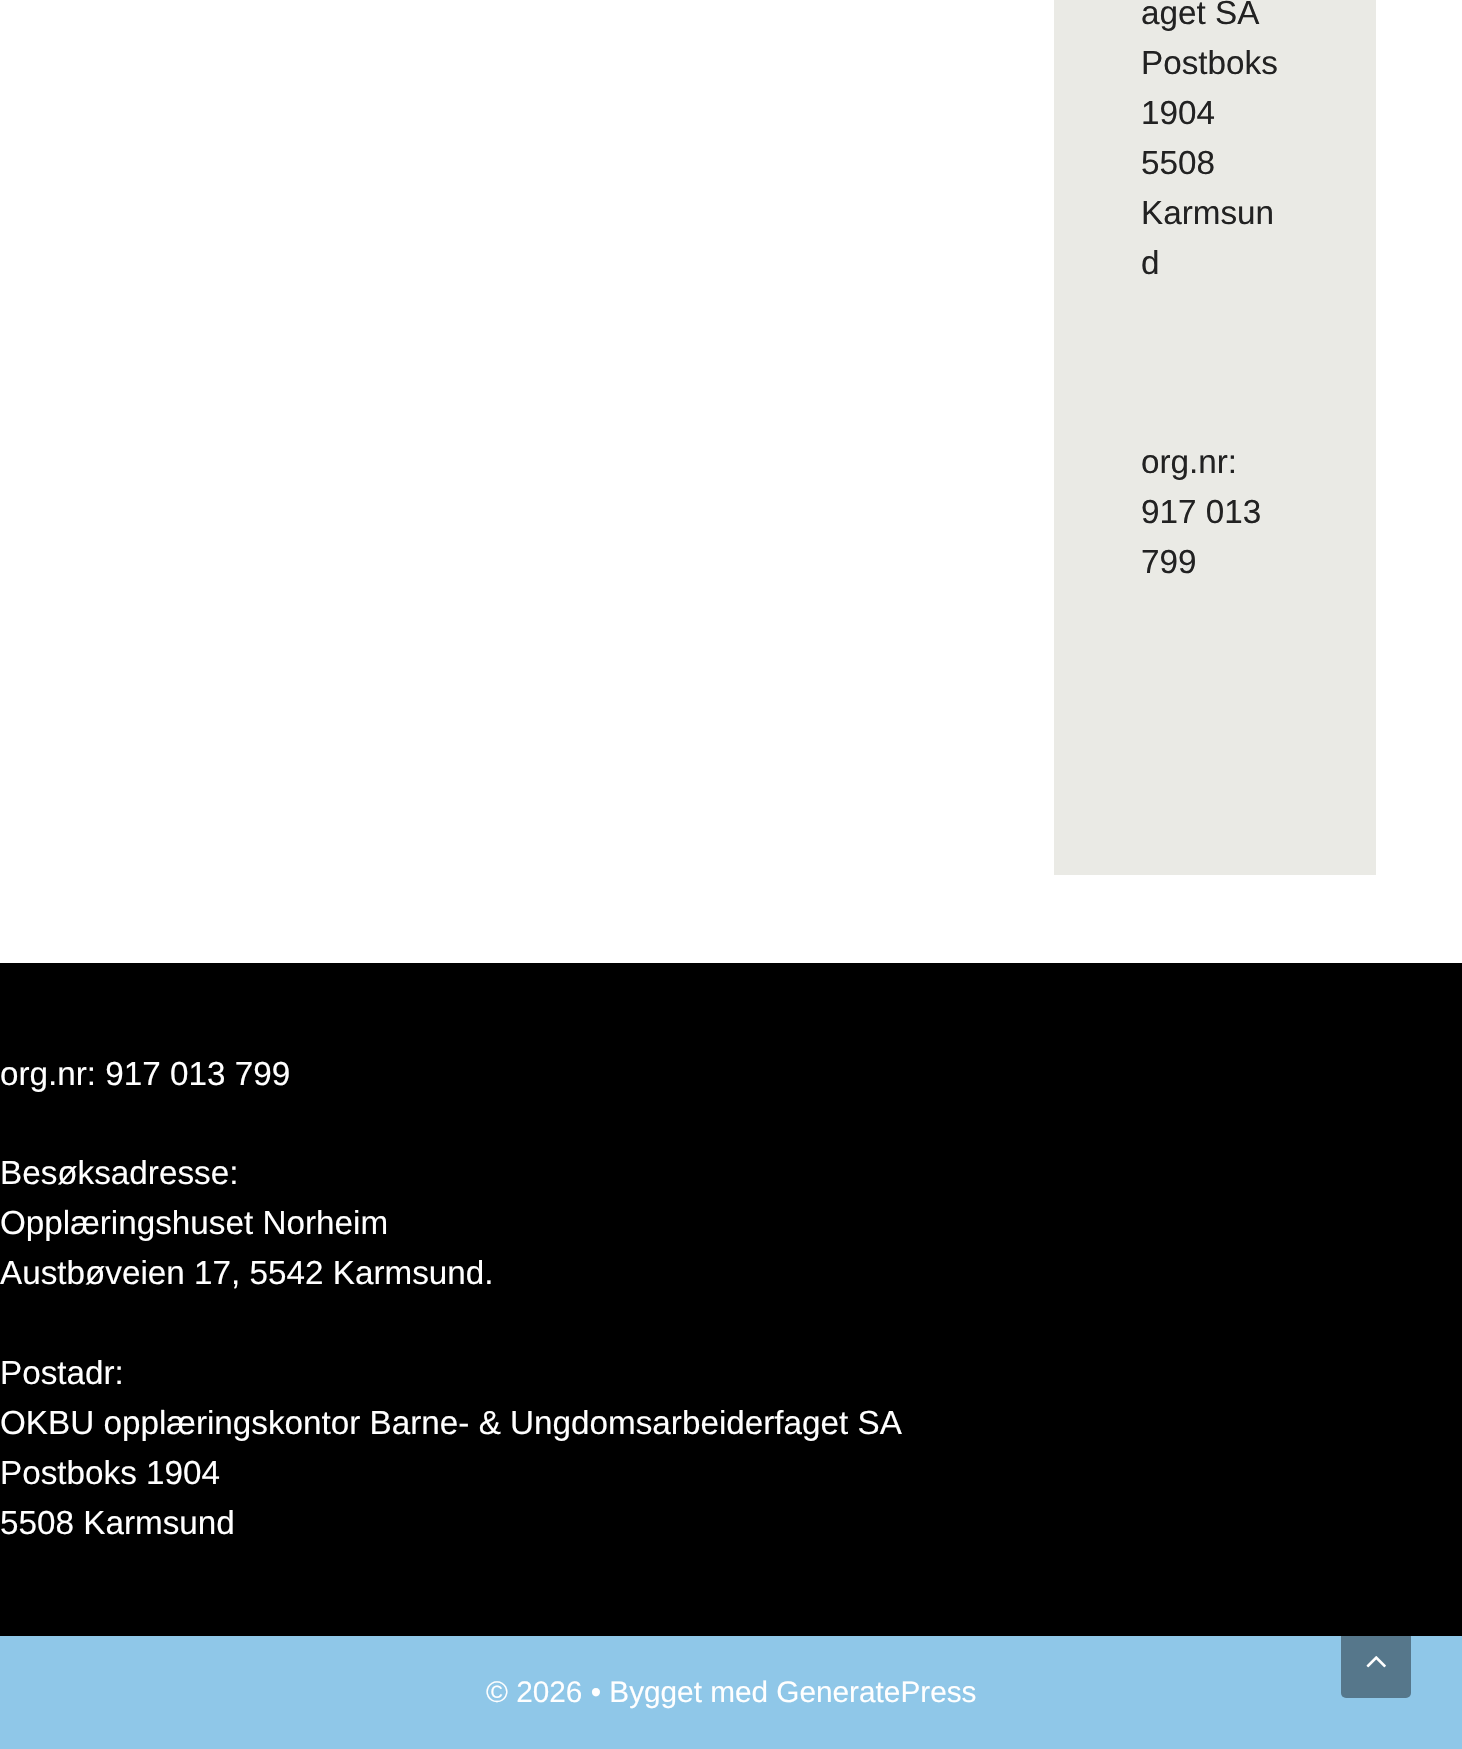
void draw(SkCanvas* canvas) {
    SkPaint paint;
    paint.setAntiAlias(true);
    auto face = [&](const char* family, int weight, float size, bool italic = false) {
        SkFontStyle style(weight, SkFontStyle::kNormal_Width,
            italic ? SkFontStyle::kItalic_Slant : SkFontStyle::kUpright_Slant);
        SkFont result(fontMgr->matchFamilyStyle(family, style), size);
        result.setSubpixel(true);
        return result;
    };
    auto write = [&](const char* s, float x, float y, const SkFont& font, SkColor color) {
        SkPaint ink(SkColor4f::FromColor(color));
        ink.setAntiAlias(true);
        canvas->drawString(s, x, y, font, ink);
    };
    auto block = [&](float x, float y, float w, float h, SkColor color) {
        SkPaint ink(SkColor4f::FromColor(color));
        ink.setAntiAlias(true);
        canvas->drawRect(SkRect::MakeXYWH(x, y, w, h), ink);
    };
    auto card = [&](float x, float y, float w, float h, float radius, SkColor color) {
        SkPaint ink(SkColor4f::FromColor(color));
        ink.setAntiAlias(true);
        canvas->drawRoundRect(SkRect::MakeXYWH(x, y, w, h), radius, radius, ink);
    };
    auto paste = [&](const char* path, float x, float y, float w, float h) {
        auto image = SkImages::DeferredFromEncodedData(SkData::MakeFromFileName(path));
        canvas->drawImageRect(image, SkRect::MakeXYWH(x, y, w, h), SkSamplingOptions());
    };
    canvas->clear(SK_ColorWHITE);
    block(1054, 0, 322, 875, SkColorSetRGB(234, 234, 229));
    auto kFont1 = face("Liberation Sans", 400, 33.25f);
    write("aget SA", 1141, 24, kFont1, SkColorSetRGB(34, 34, 34));
    write("Postboks", 1141, 74, kFont1, SkColorSetRGB(34, 34, 34));
    write("1904", 1141, 124, kFont1, SkColorSetRGB(34, 34, 34));
    write("5508", 1141, 174, kFont1, SkColorSetRGB(34, 34, 34));
    write("Karmsun", 1141, 224, kFont1, SkColorSetRGB(34, 34, 34));
    write("d", 1141, 274, kFont1, SkColorSetRGB(34, 34, 34));
    write("org.nr:", 1141, 473, kFont1, SkColorSetRGB(34, 34, 34));
    write("917 013", 1141, 523, kFont1, SkColorSetRGB(34, 34, 34));
    write("799", 1141, 573, kFont1, SkColorSetRGB(34, 34, 34));
    block(0, 963, 1462, 673, SK_ColorBLACK);
    write("org.nr: 917 013 799", 0, 1085, kFont1, SK_ColorWHITE);
    write("Besøksadresse:", 0, 1184, kFont1, SK_ColorWHITE);
    write("Opplæringshuset Norheim", 0, 1234, kFont1, SK_ColorWHITE);
    write("Austbøveien 17, 5542 Karmsund.", 0, 1284, kFont1, SK_ColorWHITE);
    write("Postadr:", 0, 1384, kFont1, SK_ColorWHITE);
    write("OKBU opplæringskontor Barne- & Ungdomsarbeiderfaget SA", 0, 1434, kFont1, SK_ColorWHITE);
    write("Postboks 1904", 0, 1484, kFont1, SK_ColorWHITE);
    write("5508 Karmsund", 0, 1534, kFont1, SK_ColorWHITE);
    block(0, 1636, 1462, 113, SkColorSetRGB(143, 199, 232));
    auto kFont2 = face("Liberation Sans", 400, 29.75f);
    write("© 2026 • Bygget med GeneratePress", 486, 1702, kFont2, SK_ColorWHITE);
    card(1341, 1628, 70, 70, 5, SkColorSetARGB(102, 0, 0, 0));
    paste("pic1.png", 1366, 1656, 20, 12);
}
